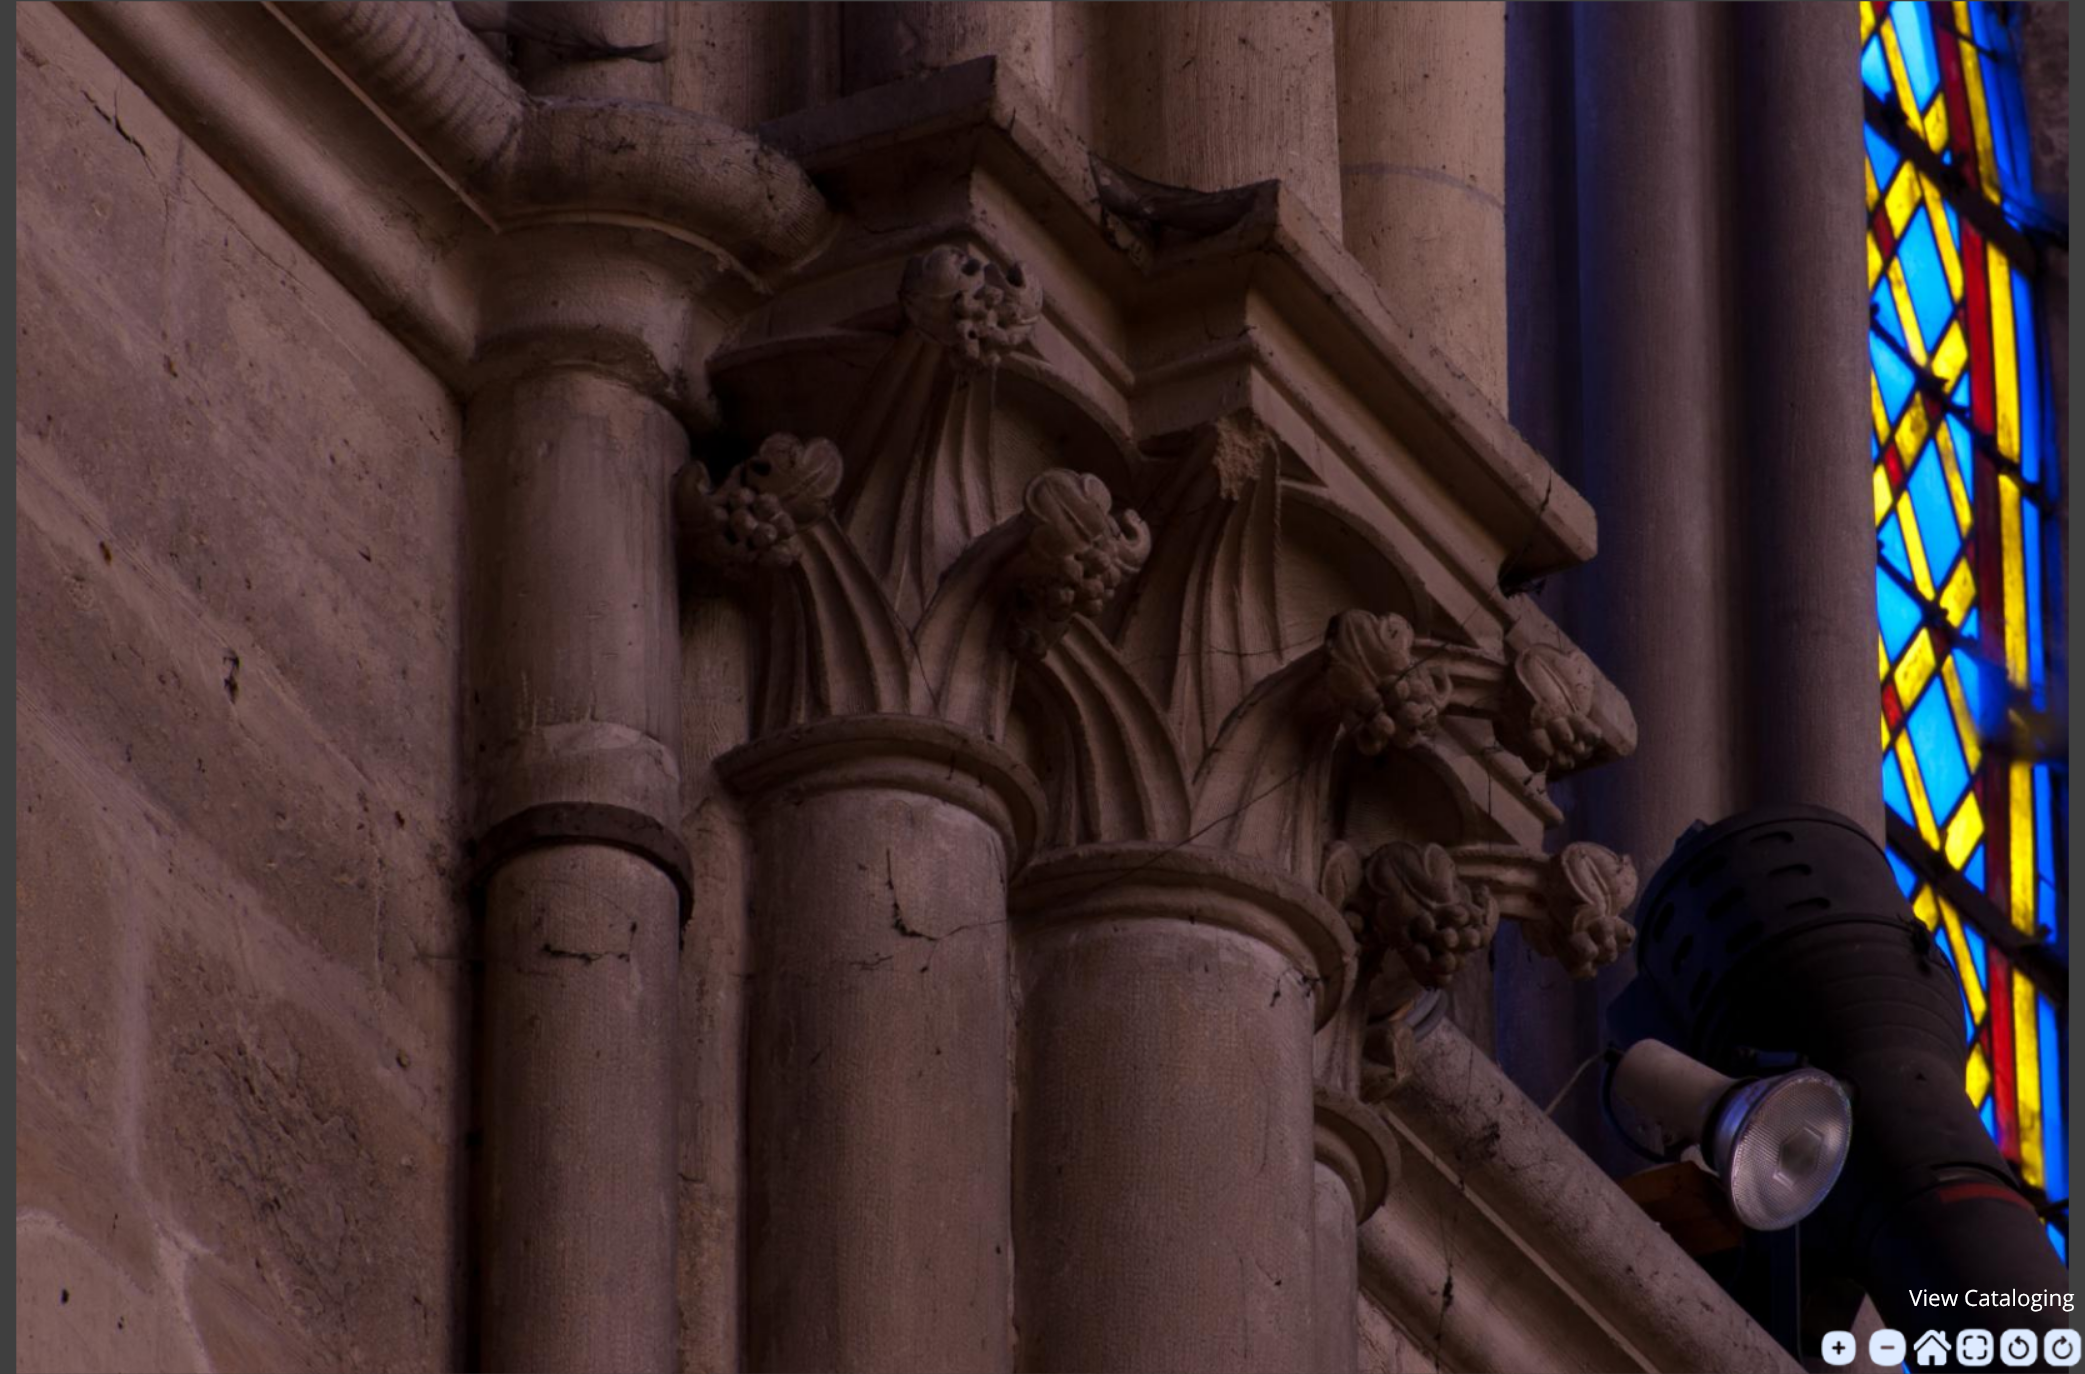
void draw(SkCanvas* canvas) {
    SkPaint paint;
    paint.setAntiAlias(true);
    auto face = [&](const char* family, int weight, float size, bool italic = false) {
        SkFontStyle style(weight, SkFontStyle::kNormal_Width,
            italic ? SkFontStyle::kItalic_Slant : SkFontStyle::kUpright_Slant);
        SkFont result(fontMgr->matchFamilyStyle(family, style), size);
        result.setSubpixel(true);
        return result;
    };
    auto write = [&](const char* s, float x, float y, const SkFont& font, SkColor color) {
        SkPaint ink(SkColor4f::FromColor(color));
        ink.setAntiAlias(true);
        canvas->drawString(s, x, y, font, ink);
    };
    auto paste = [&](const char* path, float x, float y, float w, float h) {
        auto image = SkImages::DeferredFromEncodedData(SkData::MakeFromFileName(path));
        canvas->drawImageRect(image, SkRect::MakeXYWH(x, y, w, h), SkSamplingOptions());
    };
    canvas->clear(SkColorSetRGB(63, 63, 63));
    paste("pic1.png", 16, 1, 2053, 1373);
    paste("pic2.png", 1821, 1330, 36, 37);
    paste("pic3.png", 1821, 1331, 35, 34);
    paste("pic4.png", 1867, 1327, 41, 41);
    paste("pic5.png", 1869, 1329, 37, 37);
    paste("pic6.png", 1913, 1328, 39, 39);
    paste("pic7.png", 1916, 1330, 35, 26);
    paste("pic8.png", 1955, 1327, 40, 41);
    paste("pic9.png", 1956, 1329, 38, 37);
    paste("pic10.png", 1999, 1327, 40, 41);
    paste("pic11.png", 2000, 1329, 38, 37);
    paste("pic12.png", 2042, 1327, 41, 41);
    paste("pic13.png", 2044, 1329, 37, 37);
    auto kFont1 = face("Open Sans", 400, 22.5f);
    write("View Cataloging", 1909, 1306, kFont1, SK_ColorWHITE);
}
